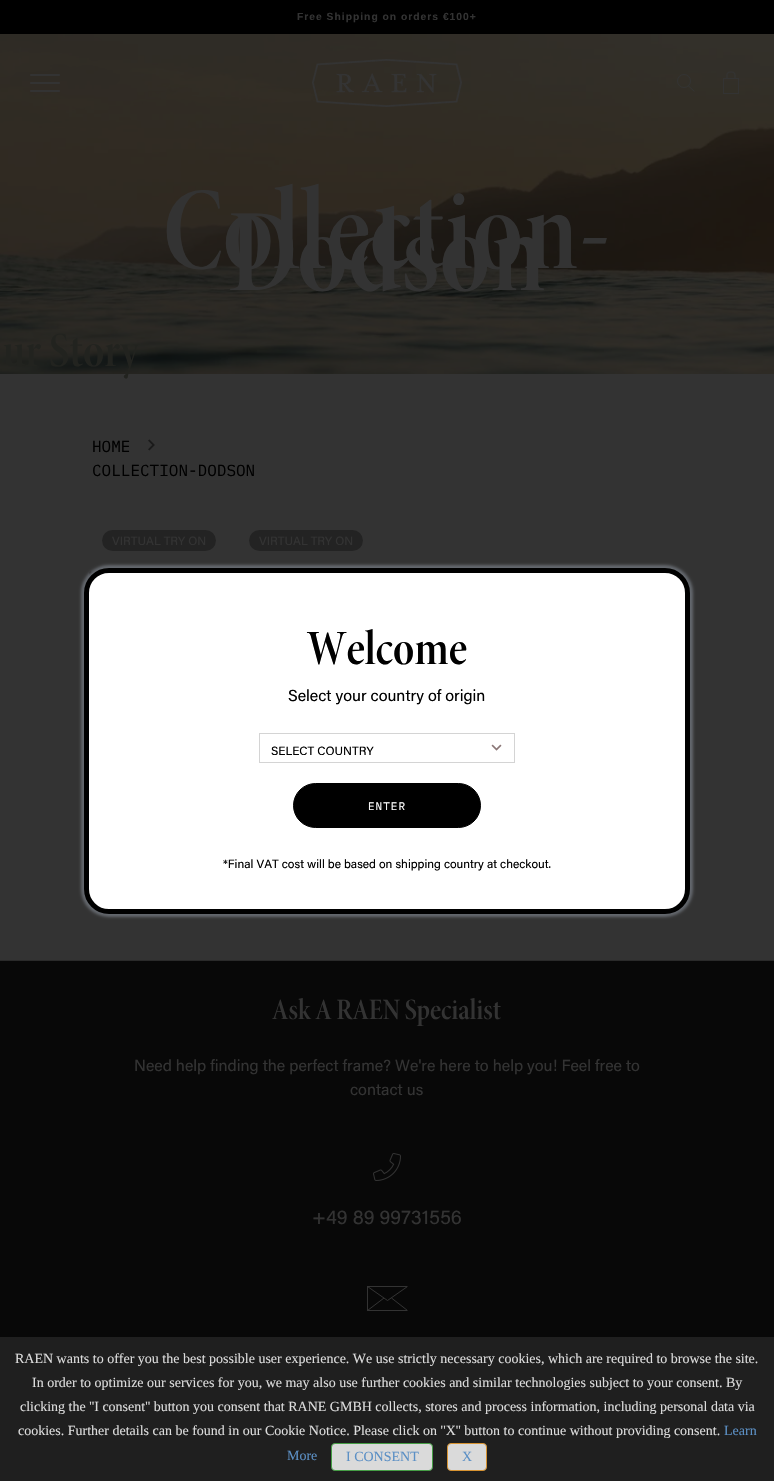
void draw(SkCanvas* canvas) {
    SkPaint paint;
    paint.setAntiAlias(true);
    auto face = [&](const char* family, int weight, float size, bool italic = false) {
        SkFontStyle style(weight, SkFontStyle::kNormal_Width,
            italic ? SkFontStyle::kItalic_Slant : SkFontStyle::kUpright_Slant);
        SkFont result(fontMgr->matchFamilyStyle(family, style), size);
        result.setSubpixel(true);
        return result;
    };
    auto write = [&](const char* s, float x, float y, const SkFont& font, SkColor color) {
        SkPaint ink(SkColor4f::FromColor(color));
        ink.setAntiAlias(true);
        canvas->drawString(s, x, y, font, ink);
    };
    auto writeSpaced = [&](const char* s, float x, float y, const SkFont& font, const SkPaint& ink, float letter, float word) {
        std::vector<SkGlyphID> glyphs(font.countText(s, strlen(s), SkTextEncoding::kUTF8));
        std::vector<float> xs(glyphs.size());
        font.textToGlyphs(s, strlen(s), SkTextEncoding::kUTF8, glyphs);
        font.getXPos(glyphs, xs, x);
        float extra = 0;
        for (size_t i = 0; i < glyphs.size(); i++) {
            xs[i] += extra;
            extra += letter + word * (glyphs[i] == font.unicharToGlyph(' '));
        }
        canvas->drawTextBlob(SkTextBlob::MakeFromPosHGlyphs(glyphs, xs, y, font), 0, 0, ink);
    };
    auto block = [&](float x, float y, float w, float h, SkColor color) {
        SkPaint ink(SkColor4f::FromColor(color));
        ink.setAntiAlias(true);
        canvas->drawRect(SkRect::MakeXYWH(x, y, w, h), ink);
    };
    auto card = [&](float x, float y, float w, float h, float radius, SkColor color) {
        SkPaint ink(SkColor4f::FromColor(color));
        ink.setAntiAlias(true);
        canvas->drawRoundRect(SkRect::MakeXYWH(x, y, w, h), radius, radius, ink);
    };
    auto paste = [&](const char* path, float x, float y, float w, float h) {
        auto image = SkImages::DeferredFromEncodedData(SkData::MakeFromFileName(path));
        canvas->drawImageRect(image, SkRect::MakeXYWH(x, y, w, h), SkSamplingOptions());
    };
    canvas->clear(SkColorSetRGB(51, 51, 51));
    block(0, 0, 774, 34, SK_ColorBLACK);
    auto kFont1 = face("Liberation Sans", 700, 10.3f);
    paint.setColor(SkColorSetRGB(51, 51, 51));
    writeSpaced("Free Shipping on orders €100+", 297, 20, kFont1, paint, 1, 0);
    paste("pic3.png", 0, 34, 774, 340);
    paste("pic1.png", 312, 59, 150, 48);
    paint.setStyle(SkPaint::kStroke_Style);
    paint.setStrokeWidth(1);
    canvas->drawCircle(684, 81, 6.5f, paint);
    paint.setStrokeCap(SkPaint::kRound_Cap);
    canvas->drawPath(SkPathBuilder().moveTo(688.5f, 86).lineTo(694, 91).detach(), paint);
    paste("pic2.png", 723, 71, 16, 23);
    card(30, 74, 30, 2, 1, SkColorSetRGB(51, 51, 51));
    card(30, 82, 30, 2, 1, SkColorSetRGB(51, 51, 51));
    card(30, 90, 30, 2, 1, SkColorSetRGB(51, 51, 51));
    auto kFont2 = face("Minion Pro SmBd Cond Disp", 600, 50);
    write("ur Story", 3, 366, kFont2, SkColorSetRGB(34, 35, 31));
    auto kFont3 = face("Minion Pro SmBd Cond Disp", 600, 120);
    write("Collection-", 163, 268, kFont3, SkColorSetRGB(51, 51, 51));
    write("Dodson", 228, 290, kFont3, SkColorSetRGB(51, 51, 51));
    auto kFont4 = face("IBM Plex Mono", 400, 16);
    write("HOME", 92, 452, kFont4, SK_ColorBLACK);
    paste("pic4.png", 148, 439, 7, 12);
    write("COLLECTION-DODSON", 92, 476, kFont4, SK_ColorBLACK);
    card(102, 530, 114, 21, 10.5f, SkColorSetRGB(35, 35, 35));
    auto kFont5 = face("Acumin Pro", 400, 12);
    write("VIRTUAL TRY ON", 112, 545, kFont5, SkColorSetRGB(51, 51, 51));
    paste("pic5.png", 89, 567, 106, 11);
    card(249, 530, 114, 21, 10.5f, SkColorSetRGB(35, 35, 35));
    write("VIRTUAL TRY ON", 259, 545, kFont5, SkColorSetRGB(51, 51, 51));
    paste("pic6.png", 255, 567, 88, 1);
    paint.setStyle(SkPaint::kFill_Style);
    paint.setColor(SkColorSetRGB(100, 104, 110));
    paint.setMaskFilter(SkMaskFilter::MakeBlur(kNormal_SkBlurStyle, 1.5f));
    canvas->drawRoundRect(SkRect::MakeXYWH(81, 565, 612, 352), 28, 28, paint);
    paint.setMaskFilter(nullptr);
    paint.setColor(SK_ColorWHITE);
    canvas->drawRoundRect(SkRect::MakeXYWH(86.5f, 570.5f, 601, 341), 22.5f, 22.5f, paint);
    paint.setStyle(SkPaint::kStroke_Style);
    paint.setStrokeWidth(5);
    paint.setStrokeCap(SkPaint::kButt_Cap);
    paint.setColor(SK_ColorBLACK);
    canvas->drawRoundRect(SkRect::MakeXYWH(86.5f, 570.5f, 601, 341), 22.5f, 22.5f, paint);
    write("Welcome", 307, 664, kFont2, SK_ColorBLACK);
    auto kFont6 = face("Acumin Pro", 400, 16);
    write("Select your country of origin", 288, 701, kFont6, SK_ColorBLACK);
    paste("pic7.png", 491, 744, 11, 7);
    paint.setStrokeWidth(1);
    paint.setColor(SkColorSetRGB(212, 212, 212));
    canvas->drawRect(SkRect::MakeXYWH(259.5f, 733.5f, 255, 29), paint);
    write("SELECT COUNTRY", 271, 755, kFont5, SK_ColorBLACK);
    paint.setStyle(SkPaint::kFill_Style);
    paint.setColor(SK_ColorBLACK);
    canvas->drawRoundRect(SkRect::MakeXYWH(293.5f, 783.5f, 187, 44), 22, 22, paint);
    paint.setStyle(SkPaint::kStroke_Style);
    canvas->drawRoundRect(SkRect::MakeXYWH(293.5f, 783.5f, 187, 44), 22, 22, paint);
    auto kFont7 = face("IBM Plex Mono", 400, 11);
    paint.setStyle(SkPaint::kFill_Style);
    paint.setColor(SK_ColorWHITE);
    writeSpaced("ENTER", 368, 810, kFont7, paint, 1, 0);
    write("*Final VAT cost will be based on shipping country at checkout.", 223, 868, kFont5, SK_ColorBLACK);
    block(0, 961, 774, 376, SkColorSetRGB(8, 8, 8));
    block(0, 1337, 774, 144, SkColorSetRGB(31, 31, 31));
    block(0, 960, 774, 1, SkColorSetRGB(42, 42, 42));
    auto kFont8 = face("Minion Pro SmBd Cond Disp", 600, 30);
    write("Ask A RAEN Specialist", 272, 1019, kFont8, SkColorSetRGB(51, 51, 51));
    write("Need help finding the perfect frame? We're here to help you! Feel free to", 134, 1071, kFont6, SkColorSetRGB(51, 51, 51));
    write("contact us", 350, 1095, kFont6, SkColorSetRGB(51, 51, 51));
    paste("pic8.png", 373, 1153, 28, 28);
    auto kFont9 = face("Acumin Pro", 400, 20);
    write("+49 89 99731556", 312, 1224, kFont9, SkColorSetRGB(51, 51, 51));
    canvas->save();
    canvas->clipRect(SkRect::MakeXYWH(367, 1286, 40, 25));
    paint.setStyle(SkPaint::kStroke_Style);
    paint.setColor(SkColorSetRGB(51, 51, 51));
    canvas->drawRect(SkRect::MakeXYWH(367.5f, 1286.5f, 40, 24), paint);
    canvas->restore();
    paint.setStrokeJoin(SkPaint::kRound_Join);
    canvas->drawPath(SkPathBuilder().moveTo(367.5f, 1286.5f).lineTo(387.5f, 1300.5f).lineTo(407.5f, 1286.5f).moveTo(391.5f, 1298).lineTo(407.5f, 1310.5f).moveTo(367.5f, 1310.5f).lineTo(384, 1298).detach(), paint);
    block(89, 1406, 596, 1, SkColorSetRGB(35, 35, 35));
    auto kFont10 = face("Liberation Serif", 400, 14);
    write("RAEN wants to offer you the best possible user experience. We use strictly necessary cookies, which are required to browse the site.", 15, 1363, kFont10, SkColorSetRGB(220, 220, 220));
    write("In order to optimize our services for you, we may also use further cookies and similar technologies subject to your consent. By", 32, 1387, kFont10, SkColorSetRGB(220, 220, 220));
    write("clicking the ''I consent'' button you consent that RANE GMBH collects, stores and process information, including personal data via", 20, 1411, kFont10, SkColorSetRGB(220, 220, 220));
    write("cookies. Further details can be found in our Cookie Notice. Please click on ''X'' button to continue without providing consent.", 18, 1435, kFont10, SkColorSetRGB(220, 220, 220));
    write("Learn", 724, 1435, kFont10, SkColorSetRGB(92, 144, 197));
    write("More", 287, 1460, kFont10, SkColorSetRGB(92, 144, 197));
    paint.setStyle(SkPaint::kFill_Style);
    paint.setColor(SkColorSetRGB(218, 218, 218));
    canvas->drawRoundRect(SkRect::MakeXYWH(331.5f, 1443.5f, 101, 27), 3.5f, 3.5f, paint);
    paint.setStyle(SkPaint::kStroke_Style);
    paint.setStrokeJoin(SkPaint::kMiter_Join);
    paint.setColor(SkColorSetRGB(69, 157, 69));
    canvas->drawRoundRect(SkRect::MakeXYWH(331.5f, 1443.5f, 101, 27), 3.5f, 3.5f, paint);
    write("I CONSENT", 346, 1461, kFont10, SkColorSetRGB(92, 144, 197));
    paint.setStyle(SkPaint::kFill_Style);
    paint.setColor(SkColorSetRGB(218, 218, 218));
    canvas->drawRoundRect(SkRect::MakeXYWH(447.5f, 1443.5f, 39, 27), 3.5f, 3.5f, paint);
    paint.setStyle(SkPaint::kStroke_Style);
    paint.setColor(SkColorSetRGB(215, 147, 49));
    canvas->drawRoundRect(SkRect::MakeXYWH(447.5f, 1443.5f, 39, 27), 3.5f, 3.5f, paint);
    write("X", 462, 1461, kFont10, SkColorSetRGB(92, 144, 197));
}
